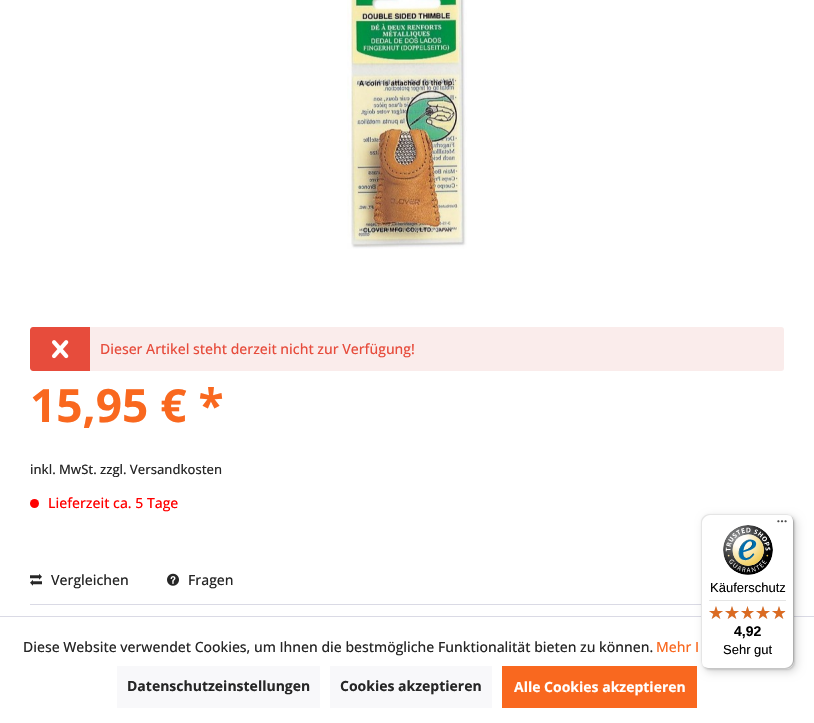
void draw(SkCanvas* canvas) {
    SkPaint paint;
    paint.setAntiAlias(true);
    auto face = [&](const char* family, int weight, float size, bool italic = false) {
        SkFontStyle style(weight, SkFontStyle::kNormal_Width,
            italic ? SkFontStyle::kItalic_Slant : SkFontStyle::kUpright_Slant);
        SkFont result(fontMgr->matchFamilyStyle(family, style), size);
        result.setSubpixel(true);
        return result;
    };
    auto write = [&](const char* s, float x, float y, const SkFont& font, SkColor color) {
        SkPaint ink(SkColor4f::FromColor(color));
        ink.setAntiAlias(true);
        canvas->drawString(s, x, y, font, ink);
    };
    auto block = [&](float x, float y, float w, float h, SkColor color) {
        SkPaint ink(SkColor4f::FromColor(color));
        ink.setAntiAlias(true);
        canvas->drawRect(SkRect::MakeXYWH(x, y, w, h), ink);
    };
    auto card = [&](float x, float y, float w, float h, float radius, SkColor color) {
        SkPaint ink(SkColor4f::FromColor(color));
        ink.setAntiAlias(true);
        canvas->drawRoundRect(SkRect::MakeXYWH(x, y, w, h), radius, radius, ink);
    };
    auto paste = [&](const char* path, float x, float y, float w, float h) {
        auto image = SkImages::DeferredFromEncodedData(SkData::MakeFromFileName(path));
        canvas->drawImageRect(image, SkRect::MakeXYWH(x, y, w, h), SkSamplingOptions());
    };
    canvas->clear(SK_ColorWHITE);
    paste("pic1.png", 347, 0, 120, 249);
    card(30, 327, 754, 44, 3, SkColorSetRGB(250, 236, 235));
    paint.setColor(SkColorSetRGB(231, 76, 60));
    canvas->drawPath(SkPathBuilder().moveTo(33, 327).lineTo(90, 327).lineTo(90, 371).lineTo(33, 371).cubicTo(31.5f, 371, 30, 369.5f, 30, 368).lineTo(30, 330).cubicTo(30, 328.5f, 31.5f, 327, 33, 327).close().detach(), paint);
    paste("pic2.png", 52, 340, 17, 19);
    auto kFont1 = face("Open Sans", 500, 14);
    write("Dieser Artikel steht derzeit nicht zur Verfügung!", 100, 354, kFont1, SkColorSetRGB(231, 76, 60));
    auto kFont2 = face("Open Sans", 700, 46);
    write("15,95 € *", 30, 422, kFont2, SkColorSetRGB(249, 104, 31));
    auto kFont3 = face("Open Sans", 500, 13);
    write("inkl. MwSt. zzgl. Versandkosten", 30, 474, kFont3, SkColorSetRGB(38, 38, 38));
    paint.setColor(SkColorSetRGB(255, 0, 0));
    canvas->drawCircle(34.5f, 503.5f, 4.5f, paint);
    write("Lieferzeit ca. 5 Tage", 48, 508, kFont1, SkColorSetRGB(255, 0, 0));
    block(30, 604, 671, 1, SkColorSetRGB(218, 218, 229));
    paste("pic3.png", 30, 573, 12, 13);
    write("Vergleichen", 51, 585, kFont1, SkColorSetRGB(38, 38, 38));
    paste("pic4.png", 167, 573, 12, 13);
    write("Fragen", 188, 585, kFont1, SkColorSetRGB(38, 38, 38));
    block(0, 616, 814, 1, SkColorSetRGB(218, 218, 229));
    block(502, 666, 195, 42, SkColorSetRGB(249, 104, 31));
    paint.setColor(SkColorSetARGB(38, 0, 0, 0));
    paint.setMaskFilter(SkMaskFilter::MakeBlur(kNormal_SkBlurStyle, 4));
    canvas->drawRoundRect(SkRect::MakeXYWH(704, 517, 93, 155), 8, 8, paint);
    paint.setMaskFilter(nullptr);
    paint.setMaskFilter(SkMaskFilter::MakeBlur(kNormal_SkBlurStyle, 1));
    canvas->drawRoundRect(SkRect::MakeXYWH(702, 515, 93, 155), 8, 8, paint);
    paint.setMaskFilter(nullptr);
    card(701, 514, 93, 155, 8, SK_ColorWHITE);
    paint.setColor(SkColorSetRGB(229, 229, 229));
    canvas->drawPath(SkPathBuilder().moveTo(710, 515).lineTo(787, 515).cubicTo(789, 515, 791, 516, 793, 518).cubicTo(791, 516, 789, 514, 786, 514).lineTo(709, 514).cubicTo(705, 514, 701, 518, 701, 522).lineTo(701, 661).cubicTo(701, 664, 703, 666, 705, 668).cubicTo(703, 666, 702, 664, 702, 662).lineTo(702, 523).cubicTo(702, 519, 706, 515, 710, 515).close().detach(), paint);
    paint.setColor(SkColorSetRGB(204, 204, 204));
    canvas->drawPath(SkPathBuilder().moveTo(702, 665).cubicTo(704, 667, 706, 669, 709, 669).lineTo(786, 669).cubicTo(790, 669, 794, 665, 794, 661).lineTo(794, 522).cubicTo(794, 519, 792, 517, 790, 515).cubicTo(792, 517, 793, 519, 793, 521).lineTo(793, 660).cubicTo(793, 664, 789, 668, 785, 668).lineTo(708, 668).cubicTo(706, 668, 704, 667, 702, 665).close().detach(), paint);
    paint.setColor(SkColorSetARGB(51, 50, 50, 50));
    canvas->drawPath(SkPathBuilder().moveTo(703, 666).cubicTo(704, 668, 707, 669, 709, 669).lineTo(786, 669).cubicTo(790, 669, 794, 665, 794, 661).lineTo(794, 522).cubicTo(794, 520, 793, 517, 791, 516).cubicTo(792, 517, 793, 519, 793, 521).lineTo(793, 660).cubicTo(793, 665, 790, 668, 785, 668).lineTo(708, 668).cubicTo(706, 668, 704, 667, 703, 666).close().detach(), paint);
    paste("pic5.png", 777, 520, 10, 3);
    paint.setColor(SkColorSetARGB(77, 255, 255, 255));
    canvas->drawPath(SkPathBuilder().moveTo(703, 666).cubicTo(704, 668, 707, 669, 709, 669).lineTo(786, 669).cubicTo(790, 669, 794, 665, 794, 661).lineTo(794, 660).cubicTo(794, 665, 790, 668, 786, 668).lineTo(708, 668).cubicTo(706, 668, 704, 667, 703, 666).close().detach(), paint);
    paste("pic6.png", 723, 525, 50, 50);
    auto kFont4 = face("Liberation Sans", 400, 13);
    write("Käuferschutz", 710, 592, kFont4, SK_ColorBLACK);
    block(709, 600, 77, 1, SkColorSetRGB(229, 229, 229));
    paste("pic7.png", 709, 606, 14, 13);
    paste("pic7.png", 725, 606, 14, 13);
    paste("pic8.png", 741, 606, 13, 13);
    paste("pic7.png", 756, 606, 14, 13);
    paste("pic7.png", 772, 606, 14, 13);
    paste("pic9.png", 709, 606, 14, 13);
    paste("pic9.png", 725, 606, 14, 13);
    paste("pic10.png", 741, 606, 13, 13);
    paste("pic9.png", 756, 606, 14, 13);
    paste("pic11.png", 772, 606, 13, 13);
    auto kFont5 = face("Liberation Sans", 700, 14);
    write("4,92", 734, 636, kFont5, SK_ColorBLACK);
    write("Sehr gut", 723, 654, kFont4, SK_ColorBLACK);
    write("Diese Website verwendet Cookies, um Ihnen die bestmögliche Funktionalität bieten zu können.", 23, 652, kFont1, SkColorSetRGB(38, 38, 38));
    write("Mehr I", 656, 652, kFont1, SkColorSetRGB(249, 104, 31));
    block(117, 666, 203, 42, SkColorSetRGB(248, 248, 250));
    auto kFont6 = face("Open Sans", 700, 14);
    write("Datenschutzeinstellungen", 127, 691, kFont6, SkColorSetRGB(38, 38, 38));
    block(330, 666, 162, 42, SkColorSetRGB(248, 248, 250));
    write("Cookies akzeptieren", 340, 691, kFont6, SkColorSetRGB(38, 38, 38));
    write("Alle Cookies akzeptieren", 514, 692, kFont6, SK_ColorWHITE);
}
